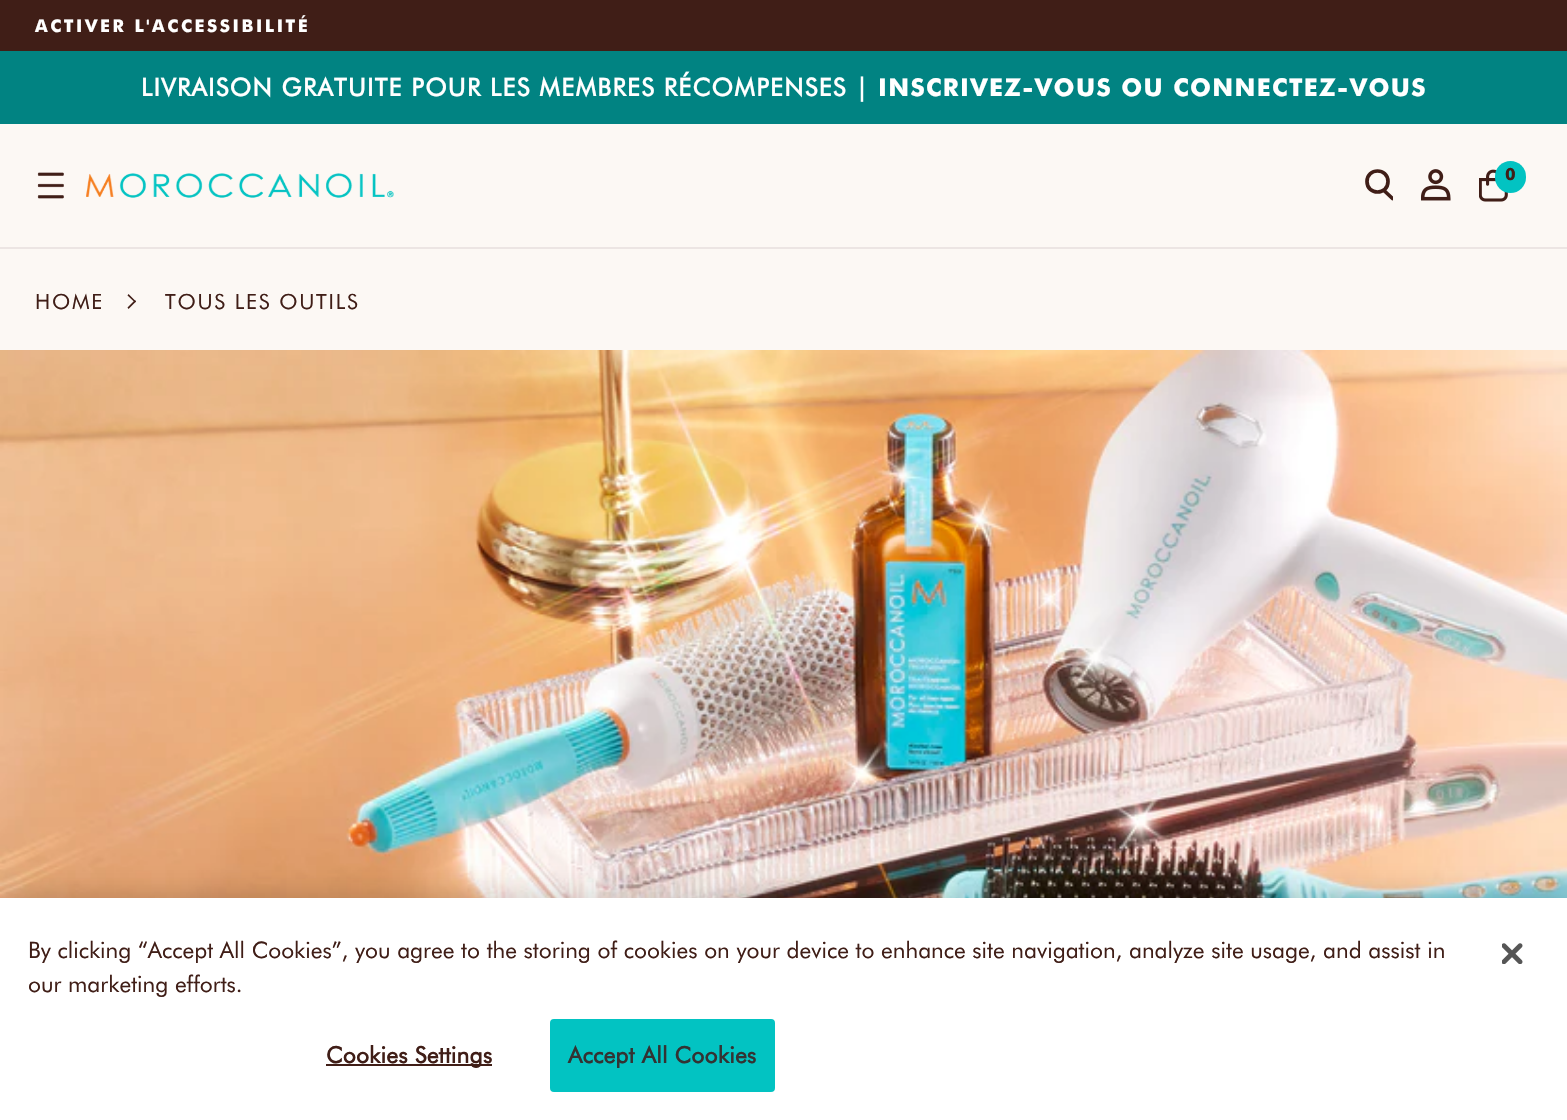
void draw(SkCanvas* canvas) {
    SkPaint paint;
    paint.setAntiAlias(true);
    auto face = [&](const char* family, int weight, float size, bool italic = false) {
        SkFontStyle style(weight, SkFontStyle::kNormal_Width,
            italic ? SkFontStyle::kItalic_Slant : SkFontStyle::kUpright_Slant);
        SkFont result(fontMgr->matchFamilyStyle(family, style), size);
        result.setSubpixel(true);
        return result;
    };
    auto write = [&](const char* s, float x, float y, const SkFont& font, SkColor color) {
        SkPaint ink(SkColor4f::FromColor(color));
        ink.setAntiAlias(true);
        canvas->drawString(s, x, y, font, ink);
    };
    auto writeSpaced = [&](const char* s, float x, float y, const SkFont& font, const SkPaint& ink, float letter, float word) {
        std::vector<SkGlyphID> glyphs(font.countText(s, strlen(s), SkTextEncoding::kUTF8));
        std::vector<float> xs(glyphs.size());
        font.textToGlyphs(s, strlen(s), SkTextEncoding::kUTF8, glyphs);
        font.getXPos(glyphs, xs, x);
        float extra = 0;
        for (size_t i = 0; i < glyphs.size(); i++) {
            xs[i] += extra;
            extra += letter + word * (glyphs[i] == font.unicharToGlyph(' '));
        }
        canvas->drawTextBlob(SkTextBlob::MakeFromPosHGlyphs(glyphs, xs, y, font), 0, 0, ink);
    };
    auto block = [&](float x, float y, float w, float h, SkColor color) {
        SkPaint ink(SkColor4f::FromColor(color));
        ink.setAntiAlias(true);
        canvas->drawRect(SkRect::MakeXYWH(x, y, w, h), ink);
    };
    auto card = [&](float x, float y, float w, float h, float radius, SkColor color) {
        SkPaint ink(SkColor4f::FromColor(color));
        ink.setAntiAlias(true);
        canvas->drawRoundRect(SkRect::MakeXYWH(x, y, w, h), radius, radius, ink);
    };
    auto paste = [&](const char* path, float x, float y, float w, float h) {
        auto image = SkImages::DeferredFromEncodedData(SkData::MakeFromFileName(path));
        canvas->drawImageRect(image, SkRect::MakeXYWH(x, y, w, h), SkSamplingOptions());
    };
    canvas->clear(SkColorSetRGB(252, 248, 244));
    block(0, 0, 1567, 51, SkColorSetRGB(64, 30, 23));
    auto kFont1 = face("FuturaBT", 900, 17.5f);
    paint.setColor(SK_ColorWHITE);
    writeSpaced("ACTIVER L'ACCESSIBILITÉ", 35, 32, kFont1, paint, 2.6f, 0);
    block(0, 51, 1567, 73, SkColorSetRGB(1, 131, 130));
    auto kFont2 = face("FuturaBT", 700, 24.5f);
    writeSpaced("LIVRAISON GRATUITE POUR LES MEMBRES RÉCOMPENSES |", 141, 96, kFont2, paint, 1.4f, 0);
    auto kFont3 = face("FuturaBT", 900, 24.5f);
    writeSpaced("INSCRIVEZ-VOUS OU CONNECTEZ-VOUS", 878, 96, kFont3, paint, 1.4f, 0);
    block(0, 247, 1567, 2, SkColorSetRGB(236, 229, 227));
    paste("pic1.png", 37, 172, 27, 27);
    paste("pic2.png", 86, 173, 308, 25);
    canvas->save();
    canvas->clipRect(SkRect::MakeXYWH(1365, 158, 28, 56));
    paint.setStyle(SkPaint::kStroke_Style);
    paint.setStrokeWidth(3.7f);
    paint.setStrokeCap(SkPaint::kRound_Cap);
    paint.setColor(SkColorSetRGB(64, 30, 23));
    canvas->drawPath(SkPathBuilder().moveTo(1384.5f, 191).lineTo(1392.5f, 198.5f).detach(), paint);
    canvas->restore();
    canvas->drawPath(SkPathBuilder().moveTo(1388, 181.5f).cubicTo(1388, 195.5f, 1367, 195.5f, 1367, 181.5f).cubicTo(1367, 167.5f, 1388, 167.5f, 1388, 181.5f).close().detach(), paint);
    paste("pic3.png", 1421, 169, 30, 32);
    paste("pic4.png", 1479, 169, 29, 33);
    card(1495, 161, 31, 32, 15.5f, SkColorSetRGB(2, 195, 194));
    auto kFont4 = face("FuturaBT", 900, 17);
    paint.setStyle(SkPaint::kFill_Style);
    writeSpaced("0", 1505, 180, kFont4, paint, -1, 0);
    auto kFont5 = face("FuturaBT", 400, 21);
    writeSpaced("HOME", 35, 309, kFont5, paint, 1.75f, 0);
    canvas->drawPath(SkPathBuilder().moveTo(128.5f, 294).lineTo(136, 301.5f).lineTo(135, 302.5f).lineTo(127.5f, 295.5f).close().detach(), paint);
    canvas->drawPath(SkPathBuilder().moveTo(135, 300).lineTo(136, 301.5f).lineTo(128.5f, 309).lineTo(127.5f, 307.5f).close().detach(), paint);
    writeSpaced("TOUS LES OUTILS", 165, 309, kFont5, paint, 1.75f, 0);
    paste("pic5.png", 0, 350, 1567, 548);
    paint.setColor(SkColorSetARGB(51, 0, 0, 0));
    paint.setMaskFilter(SkMaskFilter::MakeBlur(kNormal_SkBlurStyle, 16));
    canvas->drawRect(SkRect::MakeXYWH(0, 898, 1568, 222), paint);
    paint.setMaskFilter(nullptr);
    block(0, 898, 1567, 222, SK_ColorWHITE);
    auto kFont6 = face("FuturaBT", 400, 22.75f);
    write("By clicking “Accept All Cookies”, you agree to the storing of cookies on your device to enhance site navigation, analyze site usage, and assist in", 28, 958, kFont6, SkColorSetRGB(64, 30, 23));
    write("our marketing efforts.", 28, 992, kFont6, SkColorSetRGB(64, 30, 23));
    block(326, 1064, 166, 2, SkColorSetRGB(64, 30, 23));
    auto kFont7 = face("FuturaBT", 700, 22.75f);
    paint.setColor(SkColorSetRGB(64, 30, 23));
    writeSpaced("Cookies Settings", 326, 1063, kFont7, paint, 0.25f, 0);
    paint.setColor(SkColorSetRGB(2, 195, 194));
    canvas->drawRoundRect(SkRect::MakeXYWH(551, 1020, 223, 71), 3, 3, paint);
    paint.setStyle(SkPaint::kStroke_Style);
    paint.setStrokeWidth(2);
    paint.setStrokeCap(SkPaint::kButt_Cap);
    canvas->drawRoundRect(SkRect::MakeXYWH(551, 1020, 223, 71), 3, 3, paint);
    paint.setStyle(SkPaint::kFill_Style);
    paint.setColor(SkColorSetRGB(51, 51, 51));
    writeSpaced("Accept All Cookies", 568, 1063, kFont7, paint, 0.25f, 0);
    paste("pic6.png", 1502, 943, 21, 21);
}
